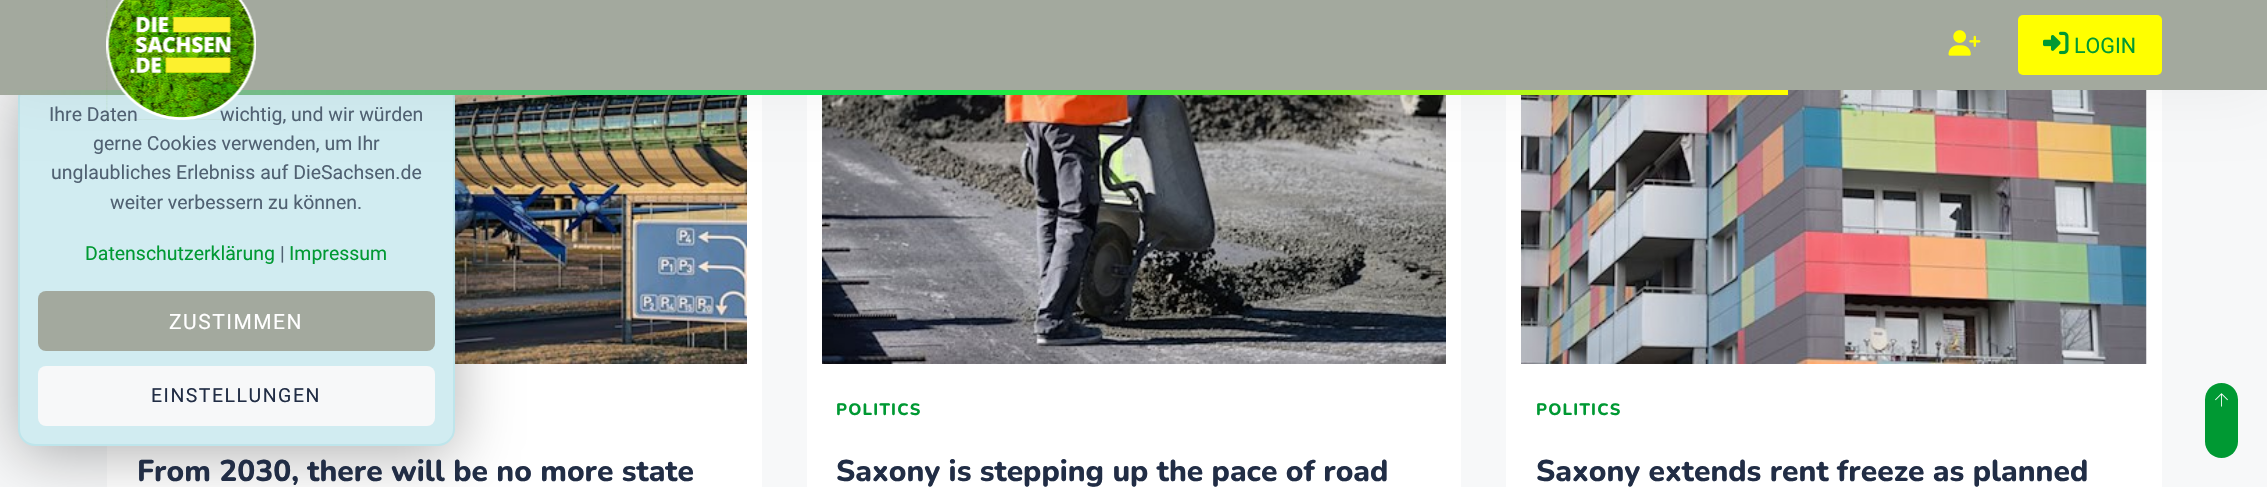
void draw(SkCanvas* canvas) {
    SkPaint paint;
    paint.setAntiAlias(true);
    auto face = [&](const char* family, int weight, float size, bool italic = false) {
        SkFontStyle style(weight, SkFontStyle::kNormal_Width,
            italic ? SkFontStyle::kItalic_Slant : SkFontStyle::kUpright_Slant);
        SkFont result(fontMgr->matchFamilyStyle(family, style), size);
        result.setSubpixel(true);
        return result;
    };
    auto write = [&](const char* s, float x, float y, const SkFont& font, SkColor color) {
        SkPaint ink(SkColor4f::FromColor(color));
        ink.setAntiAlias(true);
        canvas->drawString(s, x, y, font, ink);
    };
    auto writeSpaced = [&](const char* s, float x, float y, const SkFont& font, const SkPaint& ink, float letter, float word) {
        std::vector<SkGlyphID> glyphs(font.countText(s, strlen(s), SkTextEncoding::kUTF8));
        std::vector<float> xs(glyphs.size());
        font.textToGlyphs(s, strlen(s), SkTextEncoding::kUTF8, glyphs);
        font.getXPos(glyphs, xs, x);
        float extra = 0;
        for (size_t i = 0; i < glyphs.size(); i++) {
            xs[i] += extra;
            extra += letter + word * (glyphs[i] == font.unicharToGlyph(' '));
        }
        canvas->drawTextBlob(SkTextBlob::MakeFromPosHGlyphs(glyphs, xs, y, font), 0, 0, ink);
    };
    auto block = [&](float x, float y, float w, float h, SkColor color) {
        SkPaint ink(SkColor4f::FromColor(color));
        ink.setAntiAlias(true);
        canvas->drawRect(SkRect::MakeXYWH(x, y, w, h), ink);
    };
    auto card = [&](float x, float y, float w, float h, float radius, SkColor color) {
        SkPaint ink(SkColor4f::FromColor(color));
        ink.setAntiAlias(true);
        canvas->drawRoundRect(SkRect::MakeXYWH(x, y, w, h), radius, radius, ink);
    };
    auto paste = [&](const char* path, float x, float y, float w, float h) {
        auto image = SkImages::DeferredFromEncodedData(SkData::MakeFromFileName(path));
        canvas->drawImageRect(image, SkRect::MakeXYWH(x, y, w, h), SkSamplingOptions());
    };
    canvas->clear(SkColorSetRGB(247, 248, 249));
    block(107, 95, 655, 392, SK_ColorWHITE);
    paste("pic4.png", 454, 95, 293, 269);
    block(807, 95, 654, 392, SK_ColorWHITE);
    paste("pic5.png", 822, 95, 624, 269);
    block(1506, 90, 656, 397, SK_ColorWHITE);
    paste("pic6.png", 1521, 90, 626, 274);
    paint.setColor(SkColorSetARGB(77, 0, 0, 0));
    paint.setMaskFilter(SkMaskFilter::MakeBlur(kNormal_SkBlurStyle, 30));
    canvas->drawRoundRect(SkRect::MakeXYWH(18, 90, 437, 365), 17, 17, paint);
    paint.setMaskFilter(nullptr);
    paint.setColor(SkColorSetRGB(209, 236, 241));
    canvas->drawRoundRect(SkRect::MakeXYWH(19, 82, 435, 363), 16, 16, paint);
    paint.setStyle(SkPaint::kStroke_Style);
    paint.setStrokeWidth(2);
    paint.setColor(SkColorSetRGB(190, 229, 235));
    canvas->drawRoundRect(SkRect::MakeXYWH(19, 82, 435, 363), 16, 16, paint);
    paint.setStyle(SkPaint::kFill_Style);
    paint.setColor(SkColorSetARGB(13, 0, 0, 0));
    paint.setMaskFilter(SkMaskFilter::MakeBlur(kNormal_SkBlurStyle, 30));
    canvas->drawRect(SkRect::MakeXYWH(0, 0, 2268, 90), paint);
    paint.setMaskFilter(nullptr);
    block(0, 0, 2267, 90, SkColorSetRGB(163, 169, 158));
    {
        const SkColor colors[] = {SkColorSetRGB(163, 169, 158), SkColorSetRGB(0, 230, 77), SkColorSetRGB(255, 255, 0)};
        const float stops[] = {0, 0.5f, 1};
        const SkPoint ends[] = {{0, 92}, {1788, 92}};
        paint.setShader(SkGradientShader::MakeLinear(ends, colors, stops, 3, SkTileMode::kClamp));
        paint.setAlpha(255);
    }
    canvas->drawRect(SkRect::MakeXYWH(0, 90, 1788, 5), paint);
    auto kFont1 = face("Roboto", 400, 19.5f);
    write("Ihre Daten", 49, 121, kFont1, SkColorSetRGB(80, 97, 114));
    write("wichtig, und wir würden", 220, 121, kFont1, SkColorSetRGB(80, 97, 114));
    paste("pic1.png", 106, 0, 150, 120);
    paste("pic2.png", 1948, 30, 33, 26);
    card(2018, 15, 144, 60, 5, SkColorSetRGB(255, 255, 0));
    paste("pic3.png", 2043, 31, 26, 24);
    auto kFont2 = face("Roboto", 400, 21.5f);
    write("LOGIN", 2074, 53, kFont2, SkColorSetRGB(0, 153, 51));
    auto kFont3 = face("Nunito", 200, 30);
    write("From 2030, there will be no more state", 137, 481, kFont3, SkColorSetRGB(33, 45, 69));
    auto kFont4 = face("Nunito", 200, 16.5f);
    paint.setShader(nullptr);
    paint.setColor(SkColorSetRGB(0, 153, 51));
    writeSpaced("POLITICS", 836, 415, kFont4, paint, 1.25f, 0);
    write("Saxony is stepping up the pace of road", 836, 481, kFont3, SkColorSetRGB(33, 45, 69));
    writeSpaced("POLITICS", 1536, 415, kFont4, paint, 1.25f, 0);
    write("Saxony extends rent freeze as planned", 1536, 481, kFont3, SkColorSetRGB(33, 45, 69));
    write("gerne Cookies verwenden, um Ihr", 93, 150, kFont1, SkColorSetRGB(80, 97, 114));
    write("unglaubliches Erlebniss auf DieSachsen.de", 51, 179, kFont1, SkColorSetRGB(80, 97, 114));
    write("weiter verbessern zu können.", 110, 209, kFont1, SkColorSetRGB(80, 97, 114));
    write("Datenschutzerklärung", 85, 260, kFont1, SkColorSetRGB(0, 153, 51));
    write("|", 280, 260, kFont1, SkColorSetRGB(80, 97, 114));
    write("Impressum", 289, 260, kFont1, SkColorSetRGB(0, 153, 51));
    card(38, 291, 397, 60, 8, SkColorSetRGB(163, 169, 158));
    auto kFont5 = face("Roboto", 400, 21);
    paint.setColor(SK_ColorWHITE);
    writeSpaced("ZUSTIMMEN", 169, 329, kFont5, paint, 1.5f, 0);
    card(38, 366, 397, 60, 8, SkColorSetRGB(247, 248, 249));
    paint.setColor(SkColorSetRGB(33, 45, 69));
    writeSpaced("EINSTELLUNGEN", 151, 402, kFont1, paint, 1.5f, 0);
    card(2205, 383, 33, 75, 16.5f, SkColorSetRGB(0, 153, 51));
    paste("pic7.png", 2215, 393, 13, 14);
}
